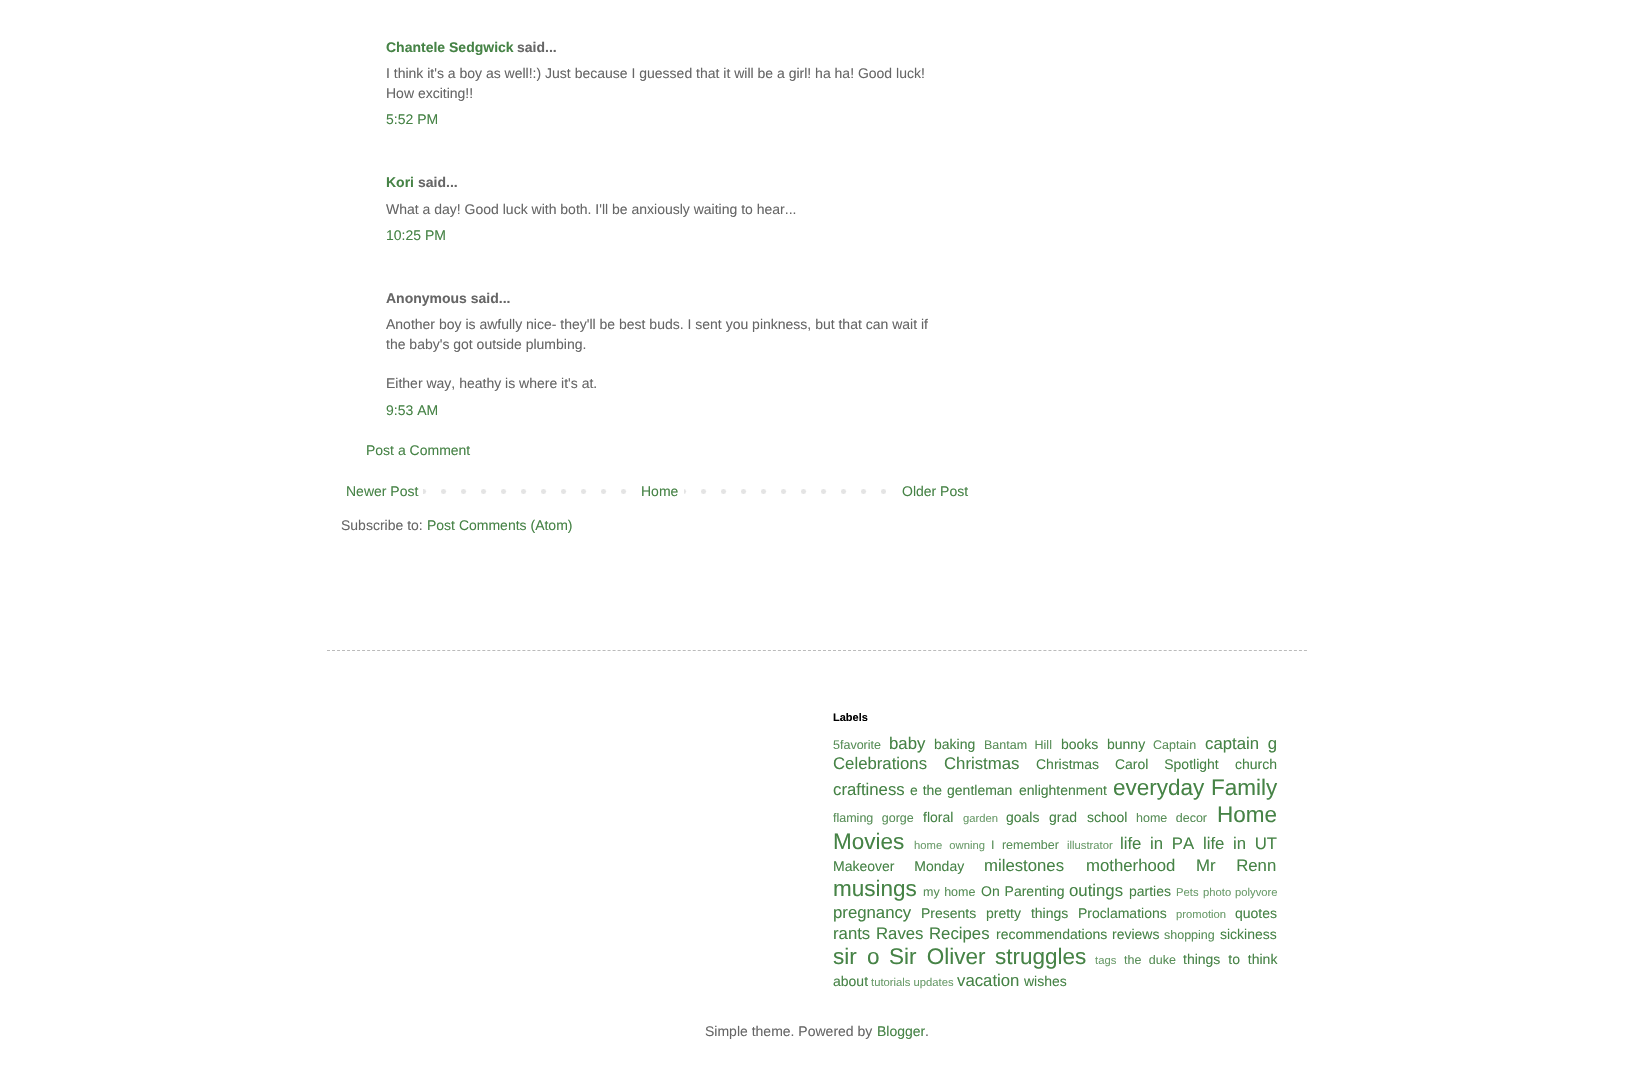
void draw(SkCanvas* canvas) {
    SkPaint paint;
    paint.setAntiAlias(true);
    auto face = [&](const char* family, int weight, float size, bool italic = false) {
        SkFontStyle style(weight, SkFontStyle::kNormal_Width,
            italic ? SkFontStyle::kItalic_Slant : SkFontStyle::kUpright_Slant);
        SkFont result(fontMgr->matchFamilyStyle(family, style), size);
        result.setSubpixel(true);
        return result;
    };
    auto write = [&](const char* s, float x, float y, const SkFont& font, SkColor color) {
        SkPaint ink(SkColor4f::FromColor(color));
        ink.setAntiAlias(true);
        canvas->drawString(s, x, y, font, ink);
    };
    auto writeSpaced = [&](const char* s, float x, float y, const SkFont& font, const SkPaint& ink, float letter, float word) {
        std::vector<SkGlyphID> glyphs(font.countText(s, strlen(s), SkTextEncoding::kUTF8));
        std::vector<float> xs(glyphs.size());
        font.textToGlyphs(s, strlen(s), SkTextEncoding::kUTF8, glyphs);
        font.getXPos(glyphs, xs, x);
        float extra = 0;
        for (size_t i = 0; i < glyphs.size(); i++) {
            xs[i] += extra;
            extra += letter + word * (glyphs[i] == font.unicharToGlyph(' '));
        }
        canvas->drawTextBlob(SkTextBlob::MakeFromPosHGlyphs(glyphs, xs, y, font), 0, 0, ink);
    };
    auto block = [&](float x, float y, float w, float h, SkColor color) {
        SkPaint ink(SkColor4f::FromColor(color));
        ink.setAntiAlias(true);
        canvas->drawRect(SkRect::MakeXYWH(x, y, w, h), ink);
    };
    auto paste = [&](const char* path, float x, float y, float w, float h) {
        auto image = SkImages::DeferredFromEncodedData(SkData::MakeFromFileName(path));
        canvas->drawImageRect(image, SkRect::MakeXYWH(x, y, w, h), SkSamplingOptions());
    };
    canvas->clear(SK_ColorWHITE);
    auto kFont1 = face("Liberation Sans", 700, 14);
    write("Chantele Sedgwick", 386, 52, kFont1, SkColorSetRGB(70, 131, 70));
    write("said...", 517, 52, kFont1, SkColorSetRGB(102, 102, 102));
    auto kFont2 = face("Liberation Sans", 400, 14);
    write("I think it's a boy as well!:) Just because I guessed that it will be a girl! ha ha! Good luck!", 386, 78, kFont2, SkColorSetRGB(102, 102, 102));
    write("How exciting!!", 386, 98, kFont2, SkColorSetRGB(102, 102, 102));
    write("5:52 PM", 386, 124, kFont2, SkColorSetRGB(70, 131, 70));
    write("Kori", 386, 187, kFont1, SkColorSetRGB(70, 131, 70));
    write("said...", 418, 187, kFont1, SkColorSetRGB(102, 102, 102));
    write("What a day! Good luck with both. I'll be anxiously waiting to hear...", 386, 214, kFont2, SkColorSetRGB(102, 102, 102));
    write("10:25 PM", 386, 240, kFont2, SkColorSetRGB(70, 131, 70));
    write("Anonymous said...", 386, 303, kFont1, SkColorSetRGB(102, 102, 102));
    write("Another boy is awfully nice- they'll be best buds. I sent you pinkness, but that can wait if", 386, 329, kFont2, SkColorSetRGB(102, 102, 102));
    write("the baby's got outside plumbing.", 386, 349, kFont2, SkColorSetRGB(102, 102, 102));
    write("Either way, heathy is where it's at.", 386, 388, kFont2, SkColorSetRGB(102, 102, 102));
    write("9:53 AM", 386, 415, kFont2, SkColorSetRGB(70, 131, 70));
    write("Post a Comment", 366, 455, kFont2, SkColorSetRGB(70, 131, 70));
    paste("pic1.png", 423, 489, 463, 5);
    write("Newer Post", 346, 496, kFont2, SkColorSetRGB(70, 131, 70));
    block(641, 489, 43, 5, SK_ColorWHITE);
    write("Home", 641, 496, kFont2, SkColorSetRGB(70, 131, 70));
    write("Older Post", 902, 496, kFont2, SkColorSetRGB(70, 131, 70));
    write("Subscribe to:", 341, 530, kFont2, SkColorSetRGB(102, 102, 102));
    write("Post Comments (Atom)", 427, 530, kFont2, SkColorSetRGB(70, 131, 70));
    paint.setStyle(SkPaint::kStroke_Style);
    paint.setStrokeWidth(1);
    paint.setColor(SkColorSetRGB(187, 187, 187));
    paint.setPathEffect(SkDashPathEffect::Make({{3, 2.01f}}, 0));
    canvas->drawPath(SkPathBuilder().moveTo(327, 650.5f).lineTo(1307, 650.5f).detach(), paint);
    paint.setPathEffect(nullptr);
    auto kFont3 = face("Liberation Sans", 700, 11);
    write("Labels", 833, 721, kFont3, SK_ColorBLACK);
    auto kFont4 = face("Liberation Sans", 400, 12.5f);
    write("5favorite", 833, 749, kFont4, SkColorSetRGB(89, 143, 89));
    auto kFont5 = face("Liberation Sans", 400, 16.75f);
    write("baby", 889, 749, kFont5, SkColorSetRGB(70, 131, 70));
    write("baking", 934, 749, kFont2, SkColorSetRGB(70, 131, 70));
    paint.setStyle(SkPaint::kFill_Style);
    paint.setColor(SkColorSetRGB(89, 143, 89));
    writeSpaced("Bantam Hill", 984, 749, kFont4, paint, 0, 4);
    write("books", 1061, 749, kFont2, SkColorSetRGB(70, 131, 70));
    write("bunny", 1107, 749, kFont2, SkColorSetRGB(70, 131, 70));
    write("Captain", 1153, 749, kFont4, SkColorSetRGB(89, 143, 89));
    paint.setColor(SkColorSetRGB(70, 131, 70));
    writeSpaced("captain g", 1205, 749, kFont5, paint, 0, 4);
    write("Celebrations", 833, 769, kFont5, SkColorSetRGB(70, 131, 70));
    write("Christmas", 944, 769, kFont5, SkColorSetRGB(70, 131, 70));
    writeSpaced("Christmas Carol Spotlight", 1036, 769, kFont2, paint, 0, 12);
    write("church", 1235, 769, kFont2, SkColorSetRGB(70, 131, 70));
    write("craftiness", 833, 795, kFont5, SkColorSetRGB(70, 131, 70));
    writeSpaced("e the gentleman", 910, 795, kFont2, paint, 0, 1);
    write("enlightenment", 1019, 795, kFont2, SkColorSetRGB(70, 131, 70));
    auto kFont6 = face("Liberation Sans", 400, 22.5f);
    write("everyday", 1113, 795, kFont6, SkColorSetRGB(70, 131, 70));
    write("Family", 1211, 795, kFont6, SkColorSetRGB(70, 131, 70));
    paint.setColor(SkColorSetRGB(89, 143, 89));
    writeSpaced("flaming gorge", 833, 822, kFont4, paint, 0, 5);
    write("floral", 923, 822, kFont2, SkColorSetRGB(70, 131, 70));
    auto kFont7 = face("Liberation Sans", 400, 11.25f);
    write("garden", 963, 822, kFont7, SkColorSetRGB(107, 156, 107));
    write("goals", 1006, 822, kFont2, SkColorSetRGB(70, 131, 70));
    paint.setColor(SkColorSetRGB(70, 131, 70));
    writeSpaced("grad school", 1049, 822, kFont2, paint, 0, 6);
    paint.setColor(SkColorSetRGB(89, 143, 89));
    writeSpaced("home decor", 1136, 822, kFont4, paint, 0, 5);
    write("Home", 1217, 822, kFont6, SkColorSetRGB(70, 131, 70));
    write("Movies", 833, 849, kFont6, SkColorSetRGB(70, 131, 70));
    paint.setColor(SkColorSetRGB(107, 156, 107));
    writeSpaced("home owning", 914, 849, kFont7, paint, 0, 4);
    paint.setColor(SkColorSetRGB(89, 143, 89));
    writeSpaced("I remember", 991, 849, kFont4, paint, 0, 4);
    write("illustrator", 1067, 849, kFont7, SkColorSetRGB(107, 156, 107));
    paint.setColor(SkColorSetRGB(70, 131, 70));
    writeSpaced("life in PA", 1120, 849, kFont5, paint, 0, 4);
    writeSpaced("life in UT", 1203, 849, kFont5, paint, 0, 4);
    writeSpaced("Makeover Monday", 833, 871, kFont2, paint, 0, 16);
    write("milestones", 984, 871, kFont5, SkColorSetRGB(70, 131, 70));
    write("motherhood", 1086, 871, kFont5, SkColorSetRGB(70, 131, 70));
    writeSpaced("Mr Renn", 1196, 871, kFont5, paint, 0, 16);
    write("musings", 833, 896, kFont6, SkColorSetRGB(70, 131, 70));
    paint.setColor(SkColorSetRGB(89, 143, 89));
    writeSpaced("my home", 923, 896, kFont4, paint, 0, 1);
    paint.setColor(SkColorSetRGB(70, 131, 70));
    writeSpaced("On Parenting", 981, 896, kFont2, paint, 0, 1);
    write("outings", 1069, 896, kFont5, SkColorSetRGB(70, 131, 70));
    write("parties", 1129, 896, kFont2, SkColorSetRGB(70, 131, 70));
    write("Pets", 1176, 896, kFont7, SkColorSetRGB(107, 156, 107));
    write("photo", 1203, 896, kFont7, SkColorSetRGB(107, 156, 107));
    write("polyvore", 1235, 896, kFont7, SkColorSetRGB(107, 156, 107));
    write("pregnancy", 833, 918, kFont5, SkColorSetRGB(70, 131, 70));
    write("Presents", 921, 918, kFont2, SkColorSetRGB(70, 131, 70));
    writeSpaced("pretty things", 986, 918, kFont2, paint, 0, 6);
    write("Proclamations", 1078, 918, kFont2, SkColorSetRGB(70, 131, 70));
    write("promotion", 1176, 918, kFont7, SkColorSetRGB(107, 156, 107));
    write("quotes", 1235, 918, kFont2, SkColorSetRGB(70, 131, 70));
    write("rants", 833, 939, kFont5, SkColorSetRGB(70, 131, 70));
    write("Raves", 876, 939, kFont5, SkColorSetRGB(70, 131, 70));
    write("Recipes", 929, 939, kFont5, SkColorSetRGB(70, 131, 70));
    write("recommendations", 996, 939, kFont2, SkColorSetRGB(70, 131, 70));
    write("reviews", 1112, 939, kFont2, SkColorSetRGB(70, 131, 70));
    write("shopping", 1164, 939, kFont4, SkColorSetRGB(89, 143, 89));
    write("sickiness", 1220, 939, kFont2, SkColorSetRGB(70, 131, 70));
    writeSpaced("sir o", 833, 964, kFont6, paint, 0, 4);
    writeSpaced("Sir Oliver", 889, 964, kFont6, paint, 0, 4);
    write("struggles", 995, 964, kFont6, SkColorSetRGB(70, 131, 70));
    write("tags", 1095, 964, kFont7, SkColorSetRGB(107, 156, 107));
    paint.setColor(SkColorSetRGB(89, 143, 89));
    writeSpaced("the duke", 1124, 964, kFont4, paint, 0, 4);
    paint.setColor(SkColorSetRGB(70, 131, 70));
    writeSpaced("things to think", 1183, 964, kFont2, paint, 0, 4);
    write("about", 833, 986, kFont2, SkColorSetRGB(70, 131, 70));
    write("tutorials updates", 871, 986, kFont7, SkColorSetRGB(107, 156, 107));
    write("vacation", 957, 986, kFont5, SkColorSetRGB(70, 131, 70));
    write("wishes", 1024, 986, kFont2, SkColorSetRGB(70, 131, 70));
    write("Simple theme. Powered by", 705, 1036, kFont2, SkColorSetRGB(102, 102, 102));
    write("Blogger", 877, 1036, kFont2, SkColorSetRGB(70, 131, 70));
    write(".", 925, 1036, kFont2, SkColorSetRGB(102, 102, 102));
}
